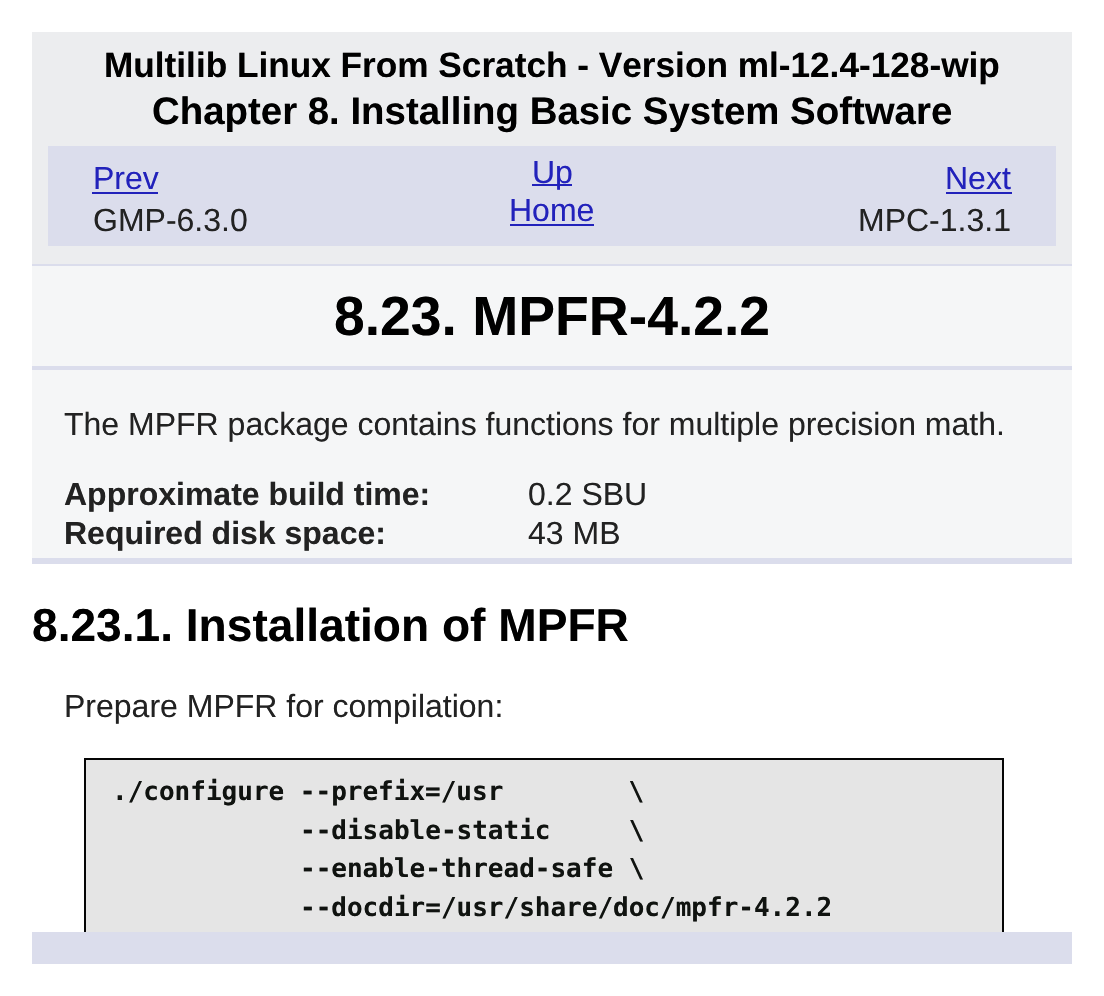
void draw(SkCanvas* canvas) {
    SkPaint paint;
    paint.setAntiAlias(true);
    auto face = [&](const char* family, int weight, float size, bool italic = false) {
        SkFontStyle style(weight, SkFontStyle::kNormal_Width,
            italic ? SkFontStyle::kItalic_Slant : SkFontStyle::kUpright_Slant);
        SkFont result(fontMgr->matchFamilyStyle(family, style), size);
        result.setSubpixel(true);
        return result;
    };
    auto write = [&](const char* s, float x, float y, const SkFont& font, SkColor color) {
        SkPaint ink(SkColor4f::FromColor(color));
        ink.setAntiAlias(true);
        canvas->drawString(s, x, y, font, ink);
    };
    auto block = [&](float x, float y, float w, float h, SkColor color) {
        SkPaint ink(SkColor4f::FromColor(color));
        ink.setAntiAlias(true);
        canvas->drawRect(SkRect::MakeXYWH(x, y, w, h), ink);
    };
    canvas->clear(SK_ColorWHITE);
    block(32, 32, 1040, 232, SkColorSetRGB(236, 237, 239));
    block(32, 264, 1040, 2, SkColorSetRGB(219, 221, 236));
    auto kFont1 = face("Liberation Sans", 700, 35.2f);
    write("Multilib Linux From Scratch - Version ml-12.4-128-wip", 104, 77, kFont1, SK_ColorBLACK);
    auto kFont2 = face("Liberation Sans", 700, 38.4f);
    write("Chapter 8. Installing Basic System Software", 152, 124, kFont2, SK_ColorBLACK);
    block(48, 146, 1008, 100, SkColorSetRGB(219, 221, 236));
    auto kFont3 = face("Liberation Sans", 400, 32);
    write("Prev", 93, 189, kFont3, SkColorSetRGB(34, 34, 187));
    block(92, 192, 66, 2, SkColorSetRGB(34, 34, 187));
    write("GMP-6.3.0", 93, 231, kFont3, SkColorSetRGB(34, 34, 34));
    block(532, 184, 40, 2, SkColorSetRGB(34, 34, 187));
    write("Up", 532, 183, kFont3, SkColorSetRGB(34, 34, 187));
    write("Next", 945, 189, kFont3, SkColorSetRGB(34, 34, 187));
    block(946, 192, 66, 2, SkColorSetRGB(34, 34, 187));
    write("MPC-1.3.1", 858, 231, kFont3, SkColorSetRGB(34, 34, 34));
    write("Home", 509, 221, kFont3, SkColorSetRGB(34, 34, 187));
    block(510, 224, 84, 2, SkColorSetRGB(34, 34, 187));
    block(32, 266, 1040, 100, SkColorSetRGB(245, 246, 247));
    block(32, 366, 1040, 4, SkColorSetRGB(219, 221, 236));
    auto kFont4 = face("Liberation Sans", 700, 55.25f);
    write("8.23. MPFR-4.2.2", 334, 335, kFont4, SK_ColorBLACK);
    block(32, 932, 1040, 32, SkColorSetRGB(219, 221, 236));
    block(32, 370, 1040, 188, SkColorSetRGB(245, 246, 247));
    block(32, 558, 1040, 6, SkColorSetRGB(219, 221, 236));
    write("The MPFR package contains functions for multiple precision math.", 64, 435, kFont3, SkColorSetRGB(34, 34, 34));
    auto kFont5 = face("Liberation Sans", 700, 32);
    write("Approximate build time:", 64, 505, kFont5, SkColorSetRGB(34, 34, 34));
    write("0.2 SBU", 528, 505, kFont3, SkColorSetRGB(34, 34, 34));
    write("Required disk space:", 64, 544, kFont5, SkColorSetRGB(34, 34, 34));
    write("43 MB", 528, 544, kFont3, SkColorSetRGB(34, 34, 34));
    auto kFont6 = face("Liberation Sans", 700, 46.1f);
    write("8.23.1. Installation of MPFR", 32, 641, kFont6, SK_ColorBLACK);
    write("Prepare MPFR for compilation:", 64, 717, kFont3, SkColorSetRGB(34, 34, 34));
    block(86, 760, 916, 172, SkColorSetRGB(229, 229, 229));
    canvas->save();
    canvas->clipRect(SkRect::MakeXYWH(32, 370, 1040, 562));
    paint.setStyle(SkPaint::kStroke_Style);
    paint.setStrokeWidth(2);
    paint.setColor(SkColorSetRGB(5, 5, 5));
    canvas->drawRect(SkRect::MakeXYWH(85, 759, 918, 180), paint);
    canvas->restore();
    auto kFont7 = face("DejaVu Sans Mono", 700, 26);
    write("./configure --prefix=/usr        \\", 112, 800, kFont7, SkColorSetRGB(16, 19, 16));
    write("--disable-static     \\", 300, 839, kFont7, SkColorSetRGB(16, 19, 16));
    write("--enable-thread-safe \\", 300, 877, kFont7, SkColorSetRGB(16, 19, 16));
    write("--docdir=/usr/share/doc/mpfr-4.2.2", 300, 916, kFont7, SkColorSetRGB(16, 19, 16));
}
